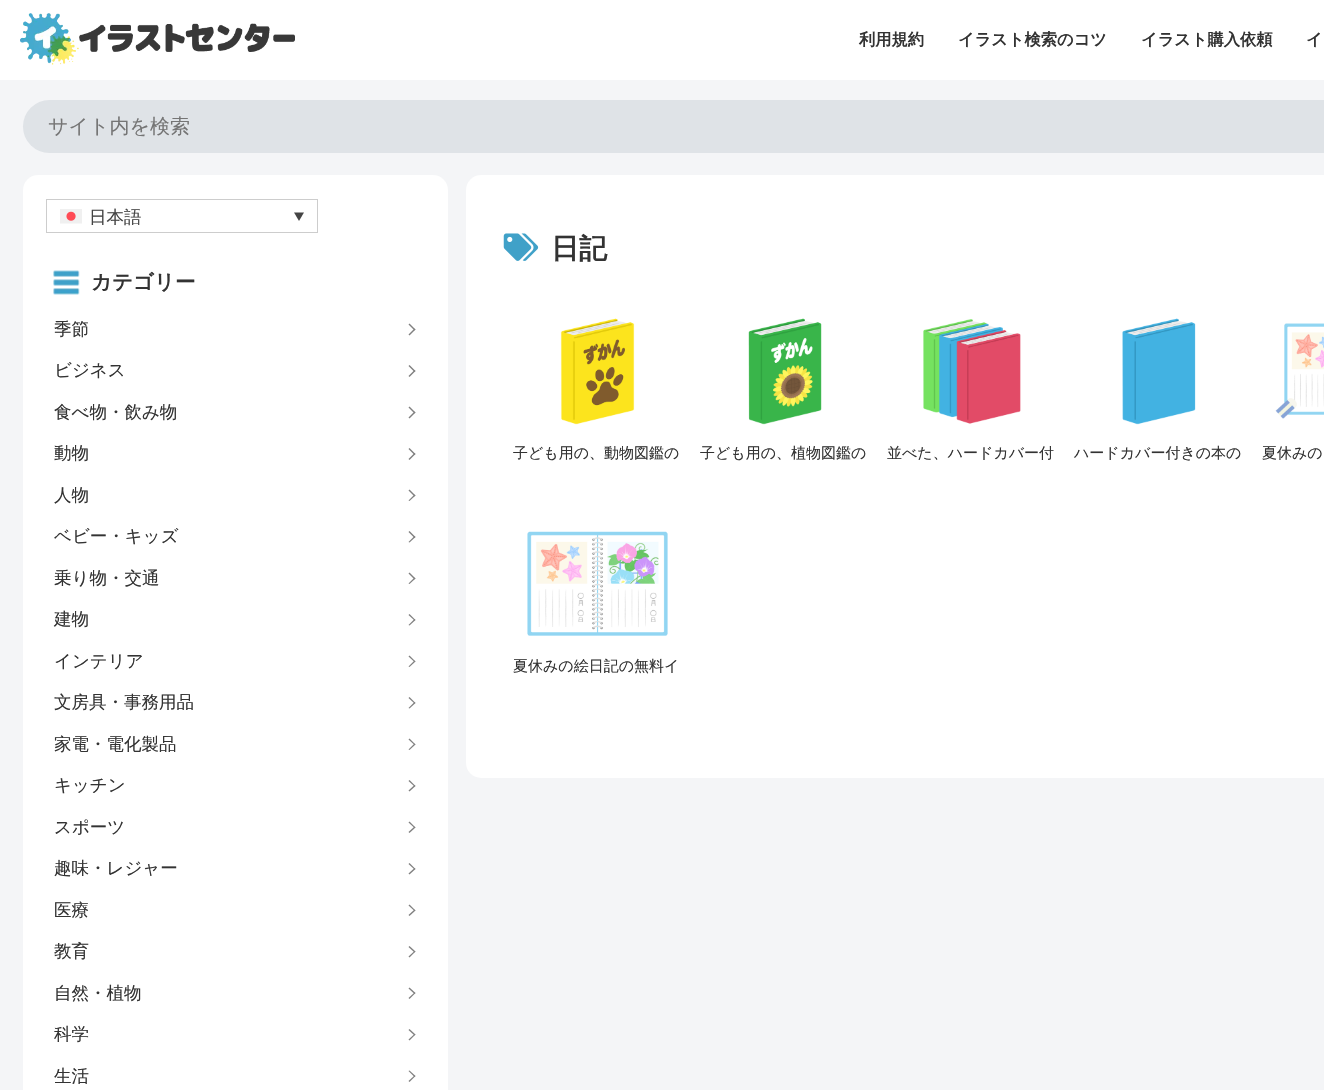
void draw(SkCanvas* canvas) {
    SkPaint paint;
    paint.setAntiAlias(true);
    auto face = [&](const char* family, int weight, float size, bool italic = false) {
        SkFontStyle style(weight, SkFontStyle::kNormal_Width,
            italic ? SkFontStyle::kItalic_Slant : SkFontStyle::kUpright_Slant);
        SkFont result(fontMgr->matchFamilyStyle(family, style), size);
        result.setSubpixel(true);
        return result;
    };
    auto write = [&](const char* s, float x, float y, const SkFont& font, SkColor color) {
        SkPaint ink(SkColor4f::FromColor(color));
        ink.setAntiAlias(true);
        canvas->drawString(s, x, y, font, ink);
    };
    auto block = [&](float x, float y, float w, float h, SkColor color) {
        SkPaint ink(SkColor4f::FromColor(color));
        ink.setAntiAlias(true);
        canvas->drawRect(SkRect::MakeXYWH(x, y, w, h), ink);
    };
    auto card = [&](float x, float y, float w, float h, float radius, SkColor color) {
        SkPaint ink(SkColor4f::FromColor(color));
        ink.setAntiAlias(true);
        canvas->drawRoundRect(SkRect::MakeXYWH(x, y, w, h), radius, radius, ink);
    };
    auto paste = [&](const char* path, float x, float y, float w, float h) {
        auto image = SkImages::DeferredFromEncodedData(SkData::MakeFromFileName(path));
        canvas->drawImageRect(image, SkRect::MakeXYWH(x, y, w, h), SkSamplingOptions());
    };
    canvas->clear(SkColorSetRGB(244, 245, 247));
    block(0, 0, 1324, 80, SK_ColorWHITE);
    paste("pic1.png", 20, 13, 275, 52);
    auto kFont1 = face("WenQuanYi Zen Hei", 700, 16.25f);
    write("利用規約", 859, 45, kFont1, SkColorSetRGB(51, 51, 51));
    write("イラスト検索のコツ", 958, 45, kFont1, SkColorSetRGB(51, 51, 51));
    write("イラスト購入依頼", 1141, 45, kFont1, SkColorSetRGB(51, 51, 51));
    write("イ", 1306, 45, kFont1, SkColorSetRGB(51, 51, 51));
    card(23, 100, 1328, 53, 26.5f, SkColorSetRGB(223, 227, 231));
    auto kFont2 = face("WenQuanYi Zen Hei", 500, 20);
    write("サイト内を検索", 48, 133, kFont2, SkColorSetRGB(117, 117, 117));
    card(23, 175, 425, 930, 15, SK_ColorWHITE);
    paint.setStyle(SkPaint::kStroke_Style);
    paint.setStrokeWidth(1);
    paint.setColor(SkColorSetRGB(205, 205, 205));
    canvas->drawRect(SkRect::MakeXYWH(46.5f, 199.5f, 271, 33), paint);
    paste("pic2.png", 60, 209, 22, 15);
    auto kFont3 = face("WenQuanYi Zen Hei", 500, 17.5f);
    write("日本語", 89, 223, kFont3, SkColorSetRGB(68, 68, 68));
    paint.setStyle(SkPaint::kFill_Style);
    paint.setColor(SkColorSetRGB(68, 68, 68));
    canvas->drawPath(SkPathBuilder().moveTo(294, 212.5f).lineTo(304, 212.5f).lineTo(299, 221).close().detach(), paint);
    paste("pic3.png", 53, 270, 27, 25);
    auto kFont4 = face("WenQuanYi Zen Hei", 700, 20.5f);
    write("カテゴリー", 91, 289, kFont4, SkColorSetRGB(51, 51, 51));
    write("季節", 54, 335, kFont3, SkColorSetRGB(51, 51, 51));
    paint.setColor(SkColorSetRGB(128, 128, 128));
    canvas->drawPath(SkPathBuilder().moveTo(409.5f, 323.5f).lineTo(415.5f, 329.5f).lineTo(414.5f, 330.5f).lineTo(408.5f, 324.5f).close().detach(), paint);
    canvas->drawPath(SkPathBuilder().moveTo(414.5f, 328.5f).lineTo(415.5f, 329.5f).lineTo(409.5f, 335.5f).lineTo(408.5f, 334.5f).close().detach(), paint);
    write("ビジネス", 54, 376, kFont3, SkColorSetRGB(51, 51, 51));
    canvas->drawPath(SkPathBuilder().moveTo(409.5f, 365).lineTo(415.5f, 371).lineTo(414.5f, 372).lineTo(408.5f, 366).close().detach(), paint);
    canvas->drawPath(SkPathBuilder().moveTo(414.5f, 370).lineTo(415.5f, 371).lineTo(409.5f, 377).lineTo(408.5f, 376).close().detach(), paint);
    write("食べ物・飲み物", 54, 418, kFont3, SkColorSetRGB(51, 51, 51));
    canvas->drawPath(SkPathBuilder().moveTo(409.5f, 406.5f).lineTo(415.5f, 412.5f).lineTo(414.5f, 413.5f).lineTo(408.5f, 407.5f).close().detach(), paint);
    canvas->drawPath(SkPathBuilder().moveTo(414.5f, 411.5f).lineTo(415.5f, 412.5f).lineTo(409.5f, 418.5f).lineTo(408.5f, 417.5f).close().detach(), paint);
    write("動物", 54, 459, kFont3, SkColorSetRGB(51, 51, 51));
    canvas->drawPath(SkPathBuilder().moveTo(409.5f, 448).lineTo(415.5f, 454).lineTo(414.5f, 455).lineTo(408.5f, 449).close().detach(), paint);
    canvas->drawPath(SkPathBuilder().moveTo(414.5f, 453).lineTo(415.5f, 454).lineTo(409.5f, 460).lineTo(408.5f, 459).close().detach(), paint);
    write("人物", 54, 501, kFont3, SkColorSetRGB(51, 51, 51));
    canvas->drawPath(SkPathBuilder().moveTo(409.5f, 489.5f).lineTo(415.5f, 495.5f).lineTo(414.5f, 496.5f).lineTo(408.5f, 490.5f).close().detach(), paint);
    canvas->drawPath(SkPathBuilder().moveTo(414.5f, 494.5f).lineTo(415.5f, 495.5f).lineTo(409.5f, 501).lineTo(408.5f, 500.5f).close().detach(), paint);
    write("ベビー・キッズ", 54, 542, kFont3, SkColorSetRGB(51, 51, 51));
    canvas->drawPath(SkPathBuilder().moveTo(409.5f, 531).lineTo(415.5f, 537).lineTo(414.5f, 538).lineTo(408.5f, 532).close().detach(), paint);
    canvas->drawPath(SkPathBuilder().moveTo(414.5f, 536).lineTo(415.5f, 537).lineTo(409.5f, 542.5f).lineTo(408.5f, 542).close().detach(), paint);
    write("乗り物・交通", 54, 584, kFont3, SkColorSetRGB(51, 51, 51));
    canvas->drawPath(SkPathBuilder().moveTo(409.5f, 572.5f).lineTo(415.5f, 578.5f).lineTo(414.5f, 579.5f).lineTo(408.5f, 573.5f).close().detach(), paint);
    canvas->drawPath(SkPathBuilder().moveTo(414.5f, 577.5f).lineTo(415.5f, 578.5f).lineTo(409.5f, 584).lineTo(408.5f, 583.5f).close().detach(), paint);
    write("建物", 54, 625, kFont3, SkColorSetRGB(51, 51, 51));
    canvas->drawPath(SkPathBuilder().moveTo(409.5f, 614).lineTo(415.5f, 620).lineTo(414.5f, 620.5f).lineTo(408.5f, 615).close().detach(), paint);
    canvas->drawPath(SkPathBuilder().moveTo(414.5f, 619).lineTo(415.5f, 620).lineTo(409.5f, 625.5f).lineTo(408.5f, 625).close().detach(), paint);
    write("インテリア", 54, 667, kFont3, SkColorSetRGB(51, 51, 51));
    canvas->drawPath(SkPathBuilder().moveTo(409.5f, 655.5f).lineTo(415.5f, 661.5f).lineTo(414.5f, 662).lineTo(408.5f, 656.5f).close().detach(), paint);
    canvas->drawPath(SkPathBuilder().moveTo(414.5f, 660.5f).lineTo(415.5f, 661.5f).lineTo(409.5f, 667).lineTo(408.5f, 666.5f).close().detach(), paint);
    write("文房具・事務用品", 54, 708, kFont3, SkColorSetRGB(51, 51, 51));
    canvas->drawPath(SkPathBuilder().moveTo(409.5f, 697).lineTo(415.5f, 703).lineTo(414.5f, 703.5f).lineTo(408.5f, 698).close().detach(), paint);
    canvas->drawPath(SkPathBuilder().moveTo(414.5f, 702).lineTo(415.5f, 703).lineTo(409.5f, 708.5f).lineTo(408.5f, 708).close().detach(), paint);
    write("家電・電化製品", 54, 750, kFont3, SkColorSetRGB(51, 51, 51));
    canvas->drawPath(SkPathBuilder().moveTo(409.5f, 738.5f).lineTo(415.5f, 744.5f).lineTo(414.5f, 745).lineTo(408.5f, 739.5f).close().detach(), paint);
    canvas->drawPath(SkPathBuilder().moveTo(414.5f, 743.5f).lineTo(415.5f, 744.5f).lineTo(409.5f, 750).lineTo(408.5f, 749.5f).close().detach(), paint);
    write("キッチン", 54, 791, kFont3, SkColorSetRGB(51, 51, 51));
    canvas->drawPath(SkPathBuilder().moveTo(409.5f, 780).lineTo(415.5f, 786).lineTo(414.5f, 786.5f).lineTo(408.5f, 781).close().detach(), paint);
    canvas->drawPath(SkPathBuilder().moveTo(414.5f, 785).lineTo(415.5f, 786).lineTo(409.5f, 791.5f).lineTo(408.5f, 790.5f).close().detach(), paint);
    write("スポーツ", 54, 833, kFont3, SkColorSetRGB(51, 51, 51));
    canvas->drawPath(SkPathBuilder().moveTo(409.5f, 821.5f).lineTo(415.5f, 827.5f).lineTo(414.5f, 828).lineTo(408.5f, 822.5f).close().detach(), paint);
    canvas->drawPath(SkPathBuilder().moveTo(414.5f, 826.5f).lineTo(415.5f, 827.5f).lineTo(409.5f, 833).lineTo(408.5f, 832).close().detach(), paint);
    write("趣味・レジャー", 54, 874, kFont3, SkColorSetRGB(51, 51, 51));
    canvas->drawPath(SkPathBuilder().moveTo(409.5f, 863).lineTo(415.5f, 869).lineTo(414.5f, 869.5f).lineTo(408.5f, 864).close().detach(), paint);
    canvas->drawPath(SkPathBuilder().moveTo(414.5f, 868).lineTo(415.5f, 869).lineTo(409.5f, 874.5f).lineTo(408.5f, 873.5f).close().detach(), paint);
    write("医療", 54, 916, kFont3, SkColorSetRGB(51, 51, 51));
    canvas->drawPath(SkPathBuilder().moveTo(409.5f, 904.5f).lineTo(415.5f, 910.5f).lineTo(414.5f, 911).lineTo(408.5f, 905.5f).close().detach(), paint);
    canvas->drawPath(SkPathBuilder().moveTo(414.5f, 909.5f).lineTo(415.5f, 910.5f).lineTo(409.5f, 916).lineTo(408.5f, 915).close().detach(), paint);
    write("教育", 54, 957, kFont3, SkColorSetRGB(51, 51, 51));
    canvas->drawPath(SkPathBuilder().moveTo(409.5f, 946).lineTo(415.5f, 951.5f).lineTo(414.5f, 952.5f).lineTo(408.5f, 947).close().detach(), paint);
    canvas->drawPath(SkPathBuilder().moveTo(414.5f, 951).lineTo(415.5f, 951.5f).lineTo(409.5f, 957.5f).lineTo(408.5f, 956.5f).close().detach(), paint);
    write("自然・植物", 54, 999, kFont3, SkColorSetRGB(51, 51, 51));
    canvas->drawPath(SkPathBuilder().moveTo(409.5f, 987.5f).lineTo(415.5f, 993).lineTo(414.5f, 994).lineTo(408.5f, 988.5f).close().detach(), paint);
    canvas->drawPath(SkPathBuilder().moveTo(414.5f, 992.5f).lineTo(415.5f, 993).lineTo(409.5f, 999).lineTo(408.5f, 998).close().detach(), paint);
    write("科学", 54, 1040, kFont3, SkColorSetRGB(51, 51, 51));
    canvas->drawPath(SkPathBuilder().moveTo(409.5f, 1029).lineTo(415.5f, 1034.5f).lineTo(414.5f, 1035.5f).lineTo(408.5f, 1030).close().detach(), paint);
    canvas->drawPath(SkPathBuilder().moveTo(414.5f, 1034).lineTo(415.5f, 1034.5f).lineTo(409.5f, 1040.5f).lineTo(408.5f, 1039.5f).close().detach(), paint);
    write("生活", 54, 1082, kFont3, SkColorSetRGB(51, 51, 51));
    canvas->drawPath(SkPathBuilder().moveTo(409.5f, 1070.5f).lineTo(415.5f, 1076).lineTo(414.5f, 1077).lineTo(408.5f, 1071).close().detach(), paint);
    canvas->drawPath(SkPathBuilder().moveTo(414.5f, 1075.5f).lineTo(415.5f, 1076).lineTo(409.5f, 1082).lineTo(408.5f, 1081).close().detach(), paint);
    card(466, 175, 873, 603, 15, SK_ColorWHITE);
    paste("pic4.png", 503, 233, 36, 28);
    auto kFont5 = face("WenQuanYi Zen Hei", 700, 28);
    write("日記", 551, 258, kFont5, SkColorSetRGB(51, 51, 51));
    paste("pic5.png", 560, 318, 75, 107);
    auto kFont6 = face("WenQuanYi Zen Hei", 500, 15);
    write("子ども用の、動物図鑑の", 513, 458, kFont6, SkColorSetRGB(51, 51, 51));
    paste("pic6.png", 748, 318, 74, 107);
    write("子ども用の、植物図鑑の", 700, 458, kFont6, SkColorSetRGB(51, 51, 51));
    paste("pic7.png", 923, 319, 98, 105);
    write("並べた、ハードカバー付", 887, 458, kFont6, SkColorSetRGB(51, 51, 51));
    paste("pic8.png", 1122, 318, 74, 107);
    write("ハードカバー付きの本の", 1074, 458, kFont6, SkColorSetRGB(51, 51, 51));
    paste("pic9.png", 1275, 323, 49, 96);
    write("夏休みの", 1262, 458, kFont6, SkColorSetRGB(51, 51, 51));
    paste("pic10.png", 527, 531, 141, 105);
    write("夏休みの絵日記の無料イ", 513, 671, kFont6, SkColorSetRGB(51, 51, 51));
}
